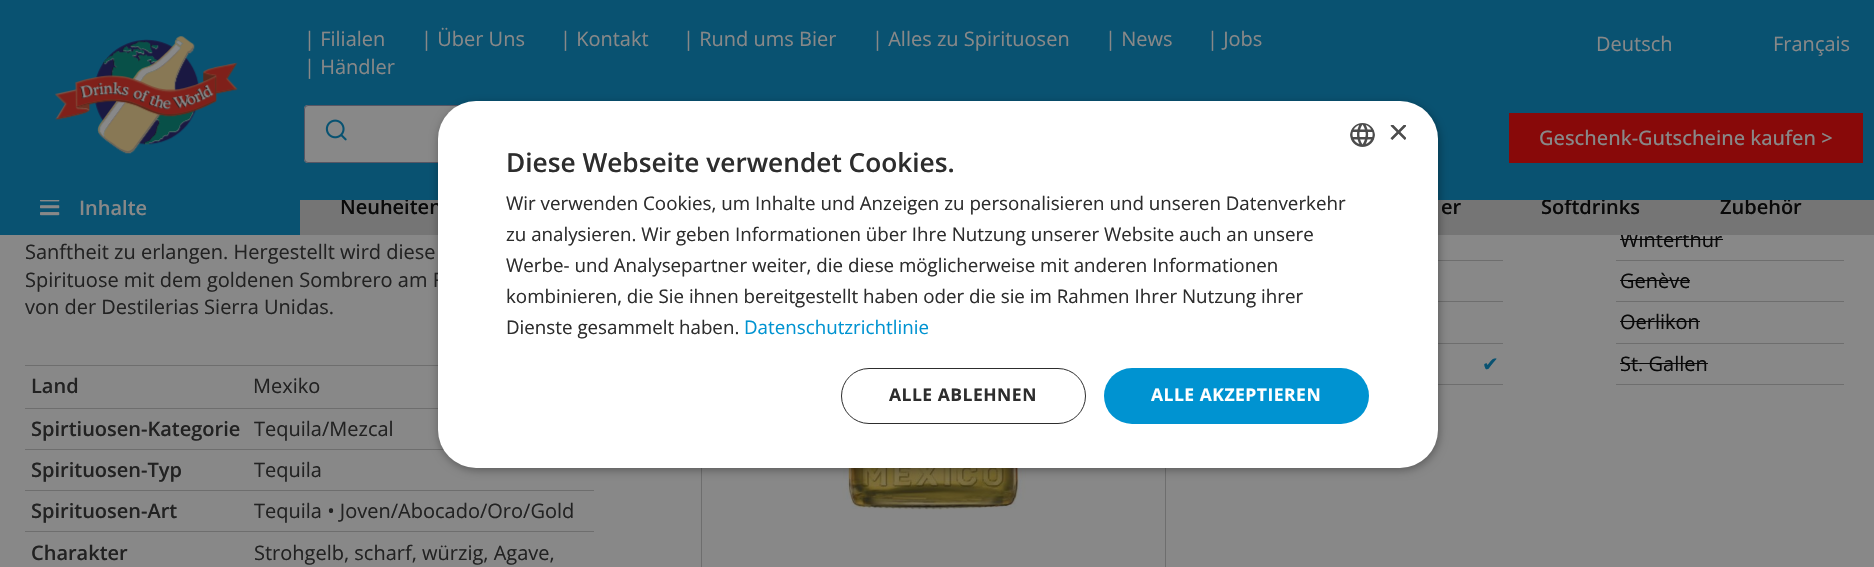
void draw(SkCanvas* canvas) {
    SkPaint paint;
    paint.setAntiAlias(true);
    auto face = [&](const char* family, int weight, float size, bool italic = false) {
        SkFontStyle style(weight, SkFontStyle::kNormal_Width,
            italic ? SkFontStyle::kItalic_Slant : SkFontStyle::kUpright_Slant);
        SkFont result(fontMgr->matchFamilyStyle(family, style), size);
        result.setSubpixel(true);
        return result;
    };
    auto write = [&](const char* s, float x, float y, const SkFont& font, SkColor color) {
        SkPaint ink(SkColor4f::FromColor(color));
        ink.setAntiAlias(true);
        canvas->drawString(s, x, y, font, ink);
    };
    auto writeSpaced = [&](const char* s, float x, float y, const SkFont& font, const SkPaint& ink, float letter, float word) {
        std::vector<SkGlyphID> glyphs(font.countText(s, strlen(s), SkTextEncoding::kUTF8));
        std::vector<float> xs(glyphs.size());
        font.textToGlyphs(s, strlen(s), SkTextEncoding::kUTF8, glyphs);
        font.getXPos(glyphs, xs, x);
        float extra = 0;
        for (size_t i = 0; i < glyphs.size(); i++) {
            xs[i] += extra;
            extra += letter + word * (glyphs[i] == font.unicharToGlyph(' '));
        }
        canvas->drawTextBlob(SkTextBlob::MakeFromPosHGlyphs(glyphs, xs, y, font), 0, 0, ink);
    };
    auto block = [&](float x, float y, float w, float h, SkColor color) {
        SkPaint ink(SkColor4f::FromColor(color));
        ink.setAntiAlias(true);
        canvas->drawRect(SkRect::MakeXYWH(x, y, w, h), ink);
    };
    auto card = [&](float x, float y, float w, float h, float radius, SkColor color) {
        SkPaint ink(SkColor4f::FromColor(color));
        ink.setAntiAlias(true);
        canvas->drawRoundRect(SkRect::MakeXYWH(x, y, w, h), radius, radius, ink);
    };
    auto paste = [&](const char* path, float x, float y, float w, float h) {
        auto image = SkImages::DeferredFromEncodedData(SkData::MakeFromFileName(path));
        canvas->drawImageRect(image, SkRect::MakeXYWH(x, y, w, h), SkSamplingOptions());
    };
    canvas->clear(SkColorSetRGB(136, 136, 136));
    block(0, 200, 300, 35, SkColorSetRGB(9, 82, 113));
    auto kFont1 = face("Open Sans", 600, 20);
    write("Inhalte", 79, 215, kFont1, SkColorSetRGB(136, 136, 136));
    paint.setStyle(SkPaint::kStroke_Style);
    paint.setStrokeWidth(1);
    paint.setColor(SkColorSetRGB(110, 110, 110));
    canvas->drawRect(SkRect::MakeXYWH(701.5f, -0.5f, 464, 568), paint);
    auto kFont2 = face("Open Sans", 400, 20);
    write("Winterthur", 1620, 247, kFont2, SkColorSetRGB(9, 9, 9));
    block(300, 200, 1574, 35, SkColorSetRGB(117, 117, 117));
    write("Neuheiten", 340, 214, kFont1, SkColorSetRGB(9, 9, 9));
    write("Softdrinks", 1541, 214, kFont1, SkColorSetRGB(9, 9, 9));
    write("Zubehör", 1720, 214, kFont1, SkColorSetRGB(9, 9, 9));
    block(0, 0, 1874, 200, SkColorSetRGB(9, 82, 113));
    paste("pic1.png", 55, 36, 183, 118);
    write("| Filialen", 304, 46, kFont2, SkColorSetRGB(136, 136, 136));
    write("| Über Uns", 421, 46, kFont2, SkColorSetRGB(136, 136, 136));
    write("| Kontakt", 560, 46, kFont2, SkColorSetRGB(136, 136, 136));
    write("| Rund ums Bier", 683, 46, kFont2, SkColorSetRGB(136, 136, 136));
    write("| Alles zu Spirituosen", 872, 46, kFont2, SkColorSetRGB(136, 136, 136));
    write("| News", 1105, 46, kFont2, SkColorSetRGB(136, 136, 136));
    write("| Jobs", 1207, 46, kFont2, SkColorSetRGB(136, 136, 136));
    write("| Händler", 304, 74, kFont2, SkColorSetRGB(136, 136, 136));
    write("Deutsch", 1596, 51, kFont2, SkColorSetRGB(136, 136, 136));
    write("Français", 1773, 51, kFont2, SkColorSetRGB(136, 136, 136));
    card(304, 105, 959, 58, 4, SkColorSetRGB(136, 136, 136));
    paint.setColor(SkColorSetARGB(204, 73, 72, 90));
    canvas->drawRoundRect(SkRect::MakeXYWH(304.5f, 105.5f, 958, 57), 3.5f, 3.5f, paint);
    paste("pic2.png", 325, 119, 22, 22);
    block(1509, 113, 354, 50, SkColorSetRGB(136, 9, 9));
    auto kFont3 = face("Open Sans", 500, 20);
    write("Geschenk-Gutscheine kaufen >", 1539, 145, kFont3, SkColorSetRGB(136, 136, 136));
    paste("pic3.png", 40, 200, 20, 16);
    write("er", 1441, 214, kFont1, SkColorSetRGB(9, 9, 9));
    block(25, 365, 413, 1, SkColorSetRGB(110, 110, 110));
    block(25, 408, 413, 1, SkColorSetRGB(110, 110, 110));
    block(25, 449, 419, 1, SkColorSetRGB(110, 110, 110));
    paste("pic5.png", 841, 468, 185, 42);
    block(1438, 260, 65, 1, SkColorSetRGB(110, 110, 110));
    block(1438, 301, 65, 1, SkColorSetRGB(110, 110, 110));
    block(1438, 343, 65, 1, SkColorSetRGB(110, 110, 110));
    block(1438, 384, 65, 1, SkColorSetRGB(110, 110, 110));
    paint.setStyle(SkPaint::kFill_Style);
    paint.setColor(SkColorSetARGB(89, 0, 0, 0));
    paint.setMaskFilter(SkMaskFilter::MakeBlur(kNormal_SkBlurStyle, 5));
    canvas->drawRoundRect(SkRect::MakeXYWH(439, 104, 1000, 366), 38, 38, paint);
    paint.setMaskFilter(nullptr);
    write("Spirituose mit dem goldenen Sombrero am F", 25, 287, kFont2, SkColorSetRGB(34, 34, 34));
    card(438, 101, 1000, 367, 38, SK_ColorWHITE);
    paste("pic4.png", 1350, 123, 25, 24);
    canvas->save();
    canvas->clipRect(SkRect::MakeXYWH(1388, 125, 18, 19));
    auto kFont4 = face("Liberation Sans", 400, 36);
    write("×", 1388, 144, kFont4, SkColorSetRGB(77, 77, 77));
    canvas->restore();
    auto kFont5 = face("Open Sans", 600, 26.25f);
    write("Diese Webseite verwendet Cookies.", 506, 172, kFont5, SkColorSetRGB(45, 45, 45));
    auto kFont6 = face("Open Sans", 400, 18.75f);
    write("Wir verwenden Cookies, um Inhalte und Anzeigen zu personalisieren und unseren Datenverkehr", 506, 210, kFont6, SkColorSetRGB(45, 45, 45));
    write("zu analysieren. Wir geben Informationen über Ihre Nutzung unserer Website auch an unsere", 506, 241, kFont6, SkColorSetRGB(45, 45, 45));
    write("Werbe- und Analysepartner weiter, die diese möglicherweise mit anderen Informationen", 506, 272, kFont6, SkColorSetRGB(45, 45, 45));
    write("kombinieren, die Sie ihnen bereitgestellt haben oder die sie im Rahmen Ihrer Nutzung ihrer", 506, 303, kFont6, SkColorSetRGB(45, 45, 45));
    write("Dienste gesammelt haben.", 506, 334, kFont6, SkColorSetRGB(45, 45, 45));
    write("Datenschutzrichtlinie", 744, 334, kFont6, SkColorSetRGB(0, 147, 209));
    paint.setStyle(SkPaint::kStroke_Style);
    paint.setColor(SkColorSetRGB(45, 45, 45));
    canvas->drawRoundRect(SkRect::MakeXYWH(841.5f, 368.5f, 244, 55), 27.5f, 27.5f, paint);
    auto kFont7 = face("Open Sans", 700, 17.5f);
    paint.setStyle(SkPaint::kFill_Style);
    writeSpaced("ALLE ABLEHNEN", 889, 401, kFont7, paint, 0.5f, 0);
    card(1104, 368, 265, 56, 28, SkColorSetRGB(0, 147, 209));
    paint.setColor(SK_ColorWHITE);
    writeSpaced("ALLE AKZEPTIEREN", 1151, 401, kFont7, paint, 0.5f, 0);
    write("Sanftheit zu erlangen. Hergestellt wird diese", 25, 259, kFont2, SkColorSetRGB(34, 34, 34));
    write("von der Destilerias Sierra Unidas.", 25, 314, kFont2, SkColorSetRGB(34, 34, 34));
    write("Land", 31, 393, kFont1, SkColorSetRGB(34, 34, 34));
    write("Mexiko", 253, 393, kFont2, SkColorSetRGB(34, 34, 34));
    write("Spirtiuosen-Kategorie", 31, 436, kFont1, SkColorSetRGB(34, 34, 34));
    write("Tequila/Mezcal", 254, 436, kFont2, SkColorSetRGB(34, 34, 34));
    write("Spirituosen-Typ", 31, 477, kFont1, SkColorSetRGB(34, 34, 34));
    write("Tequila", 254, 477, kFont2, SkColorSetRGB(34, 34, 34));
    block(25, 490, 569, 1, SkColorSetRGB(110, 110, 110));
    write("Spirituosen-Art", 31, 518, kFont1, SkColorSetRGB(34, 34, 34));
    write("Tequila • Joven/Abocado/Oro/Gold", 254, 518, kFont2, SkColorSetRGB(34, 34, 34));
    block(25, 531, 569, 1, SkColorSetRGB(110, 110, 110));
    write("Charakter", 31, 560, kFont1, SkColorSetRGB(34, 34, 34));
    write("Strohgelb, scharf, würzig, Agave,", 254, 560, kFont2, SkColorSetRGB(34, 34, 34));
    auto kFont8 = face("DejaVu Sans", 400, 20);
    write("✔", 1482, 371, kFont8, SkColorSetRGB(9, 82, 113));
    block(1616, 260, 228, 1, SkColorSetRGB(110, 110, 110));
    block(1620, 239, 103, 1, SkColorSetRGB(9, 9, 9));
    block(1616, 301, 228, 1, SkColorSetRGB(110, 110, 110));
    write("Genève", 1620, 288, kFont2, SkColorSetRGB(9, 9, 9));
    block(1620, 280, 70, 1, SkColorSetRGB(9, 9, 9));
    block(1616, 343, 228, 1, SkColorSetRGB(110, 110, 110));
    write("Oerlikon", 1620, 329, kFont2, SkColorSetRGB(9, 9, 9));
    block(1620, 321, 80, 1, SkColorSetRGB(9, 9, 9));
    block(1616, 384, 228, 1, SkColorSetRGB(110, 110, 110));
    write("St. Gallen", 1620, 371, kFont2, SkColorSetRGB(9, 9, 9));
    block(1620, 363, 88, 1, SkColorSetRGB(9, 9, 9));
}
